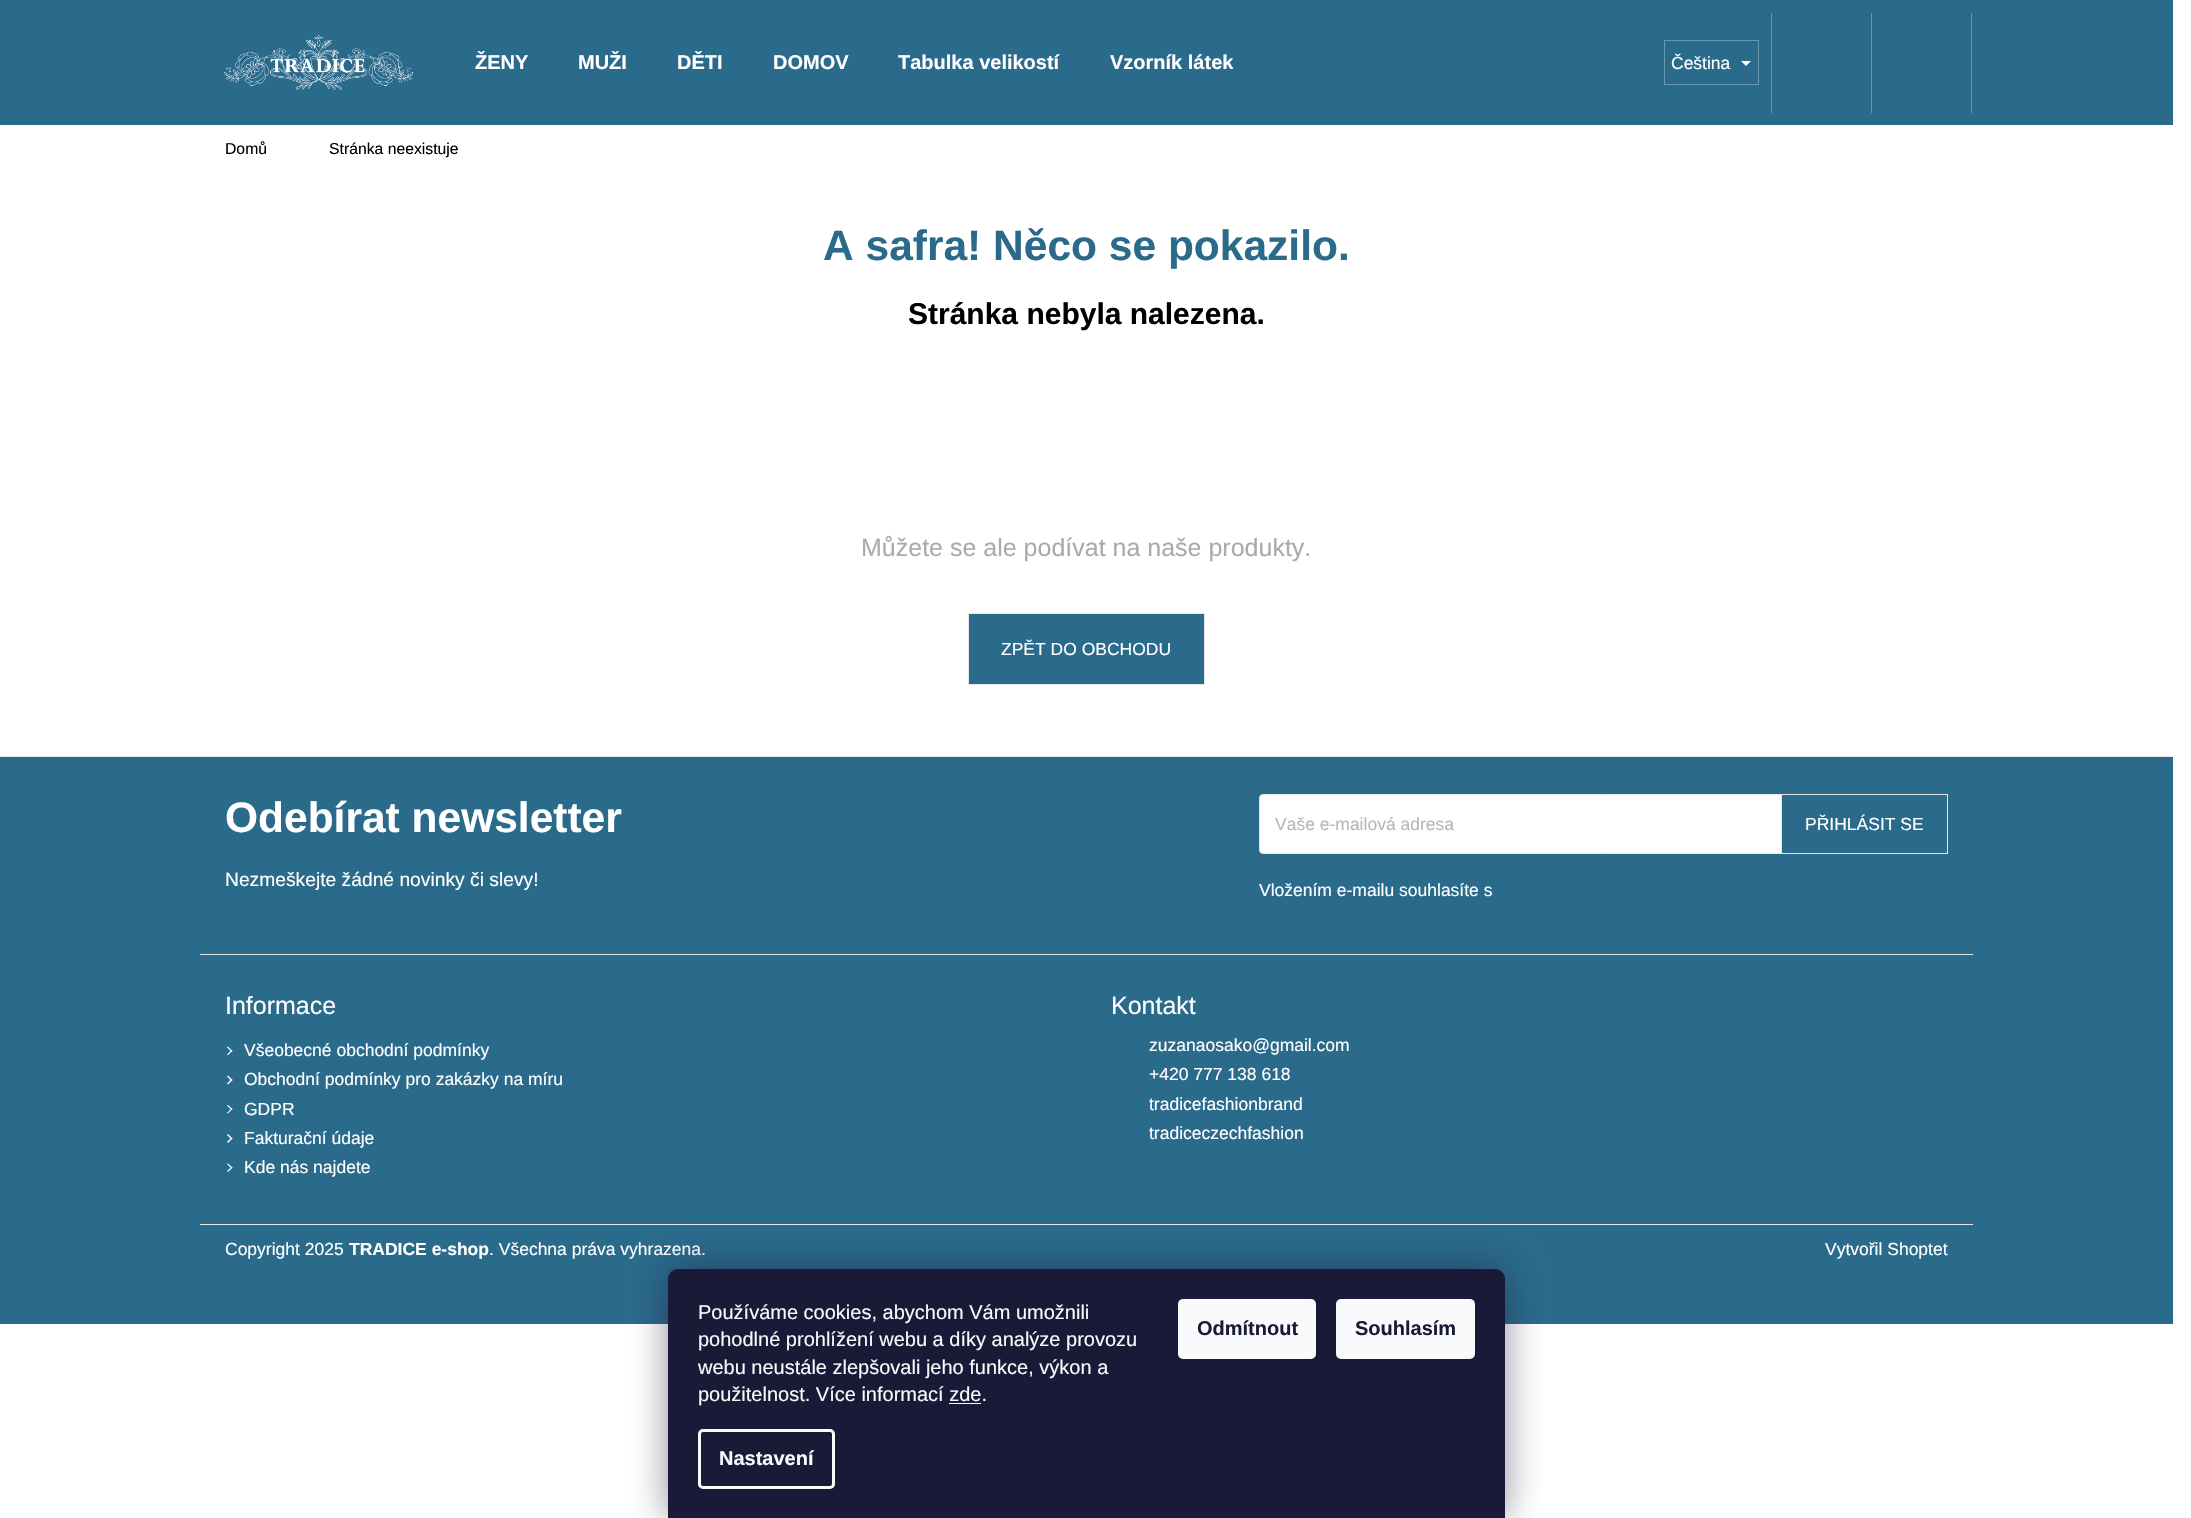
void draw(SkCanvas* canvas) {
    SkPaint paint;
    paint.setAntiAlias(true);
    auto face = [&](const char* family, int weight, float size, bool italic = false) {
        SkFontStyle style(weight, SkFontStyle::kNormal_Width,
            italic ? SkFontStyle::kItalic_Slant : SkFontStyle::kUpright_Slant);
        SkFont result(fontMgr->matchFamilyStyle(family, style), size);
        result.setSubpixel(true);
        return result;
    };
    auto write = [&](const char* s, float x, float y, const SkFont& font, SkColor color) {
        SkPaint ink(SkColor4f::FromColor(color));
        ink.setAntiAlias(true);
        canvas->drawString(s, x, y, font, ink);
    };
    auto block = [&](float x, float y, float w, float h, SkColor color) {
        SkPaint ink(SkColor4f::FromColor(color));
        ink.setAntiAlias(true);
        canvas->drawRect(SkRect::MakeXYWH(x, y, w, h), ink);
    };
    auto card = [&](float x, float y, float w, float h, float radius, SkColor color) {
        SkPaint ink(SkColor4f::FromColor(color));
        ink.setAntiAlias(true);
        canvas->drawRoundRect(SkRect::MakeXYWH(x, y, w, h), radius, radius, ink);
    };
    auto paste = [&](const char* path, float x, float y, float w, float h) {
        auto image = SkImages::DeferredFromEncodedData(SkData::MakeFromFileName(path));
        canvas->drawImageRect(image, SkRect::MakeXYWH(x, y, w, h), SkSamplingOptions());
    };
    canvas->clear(SK_ColorWHITE);
    block(0, 0, 2173, 125, SkColorSetRGB(42, 106, 139));
    paste("pic1.png", 224, 35, 190, 55);
    auto kFont1 = face("Liberation Sans", 700, 20);
    write("ŽENY", 475, 69, kFont1, SK_ColorWHITE);
    write("MUŽI", 578, 69, kFont1, SK_ColorWHITE);
    write("DĚTI", 677, 69, kFont1, SK_ColorWHITE);
    write("DOMOV", 773, 69, kFont1, SK_ColorWHITE);
    write("Tabulka velikostí", 898, 69, kFont1, SK_ColorWHITE);
    write("Vzorník látek", 1110, 69, kFont1, SK_ColorWHITE);
    block(1971, 13, 1, 100, SkColorSetRGB(106, 151, 174));
    paint.setStyle(SkPaint::kStroke_Style);
    paint.setStrokeWidth(1);
    paint.setColor(SkColorSetRGB(106, 151, 174));
    canvas->drawRect(SkRect::MakeXYWH(1664.5f, 40.5f, 94, 44), paint);
    auto kFont2 = face("Liberation Sans", 400, 17.5f);
    write("Čeština", 1671, 69, kFont2, SK_ColorWHITE);
    paint.setStyle(SkPaint::kFill_Style);
    paint.setColor(SK_ColorWHITE);
    canvas->drawPath(SkPathBuilder().moveTo(1741, 61).lineTo(1751, 61).lineTo(1746, 66).close().detach(), paint);
    block(1771, 13, 1, 100, SkColorSetRGB(106, 151, 174));
    block(1871, 13, 1, 100, SkColorSetRGB(106, 151, 174));
    auto kFont3 = face("Liberation Sans", 400, 15.75f);
    write("Domů", 225, 154, kFont3, SK_ColorBLACK);
    write("Stránka neexistuje", 329, 154, kFont3, SK_ColorBLACK);
    auto kFont4 = face("Liberation Sans", 700, 42.5f);
    write("A safra! Něco se pokazilo.", 823, 260, kFont4, SkColorSetRGB(42, 106, 139));
    auto kFont5 = face("Liberation Sans", 700, 30);
    write("Stránka nebyla nalezena.", 908, 324, kFont5, SK_ColorBLACK);
    auto kFont6 = face("Liberation Sans", 400, 25);
    write("Můžete se ale podívat na naše produkty.", 861, 556, kFont6, SkColorSetRGB(170, 170, 170));
    paint.setColor(SkColorSetRGB(42, 106, 139));
    canvas->drawRect(SkRect::MakeXYWH(968.5f, 613.5f, 236, 71), paint);
    paint.setStyle(SkPaint::kStroke_Style);
    paint.setColor(SkColorSetRGB(230, 230, 230));
    canvas->drawRect(SkRect::MakeXYWH(968.5f, 613.5f, 236, 71), paint);
    write("ZPĚT DO OBCHODU", 1001, 655, kFont2, SK_ColorWHITE);
    block(0, 757, 2173, 567, SkColorSetRGB(42, 106, 139));
    block(0, 756, 2173, 1, SkColorSetRGB(230, 230, 230));
    block(200, 954, 1773, 1, SkColorSetRGB(230, 230, 230));
    write("Odebírat newsletter", 225, 832, kFont4, SK_ColorWHITE);
    auto kFont7 = face("Liberation Sans", 400, 19.25f);
    write("Nezmeškejte žádné novinky či slevy!", 225, 886, kFont7, SK_ColorWHITE);
    paint.setStyle(SkPaint::kFill_Style);
    paint.setColor(SK_ColorWHITE);
    canvas->drawRoundRect(SkRect::MakeXYWH(1259.5f, 794.5f, 688, 59), 3.5f, 3.5f, paint);
    paint.setStyle(SkPaint::kStroke_Style);
    paint.setColor(SkColorSetRGB(230, 230, 230));
    canvas->drawRoundRect(SkRect::MakeXYWH(1259.5f, 794.5f, 688, 59), 3.5f, 3.5f, paint);
    write("Vaše e-mailová adresa", 1275, 830, kFont2, SkColorSetRGB(182, 182, 182));
    paint.setStyle(SkPaint::kFill_Style);
    paint.setColor(SkColorSetRGB(42, 106, 139));
    canvas->drawRect(SkRect::MakeXYWH(1781.5f, 794.5f, 166, 59), paint);
    paint.setStyle(SkPaint::kStroke_Style);
    paint.setColor(SkColorSetRGB(230, 230, 230));
    canvas->drawRect(SkRect::MakeXYWH(1781.5f, 794.5f, 166, 59), paint);
    write("PŘIHLÁSIT SE", 1805, 830, kFont2, SK_ColorWHITE);
    write("Vložením e-mailu souhlasíte s", 1259, 896, kFont2, SK_ColorWHITE);
    write("Informace", 225, 1014, kFont6, SK_ColorWHITE);
    paint.setStyle(SkPaint::kFill_Style);
    paint.setColor(SK_ColorWHITE);
    canvas->drawPath(SkPathBuilder().moveTo(227, 1047.5f).lineTo(228, 1046.5f).lineTo(232.5f, 1051).lineTo(231.5f, 1051.5f).close().detach(), paint);
    canvas->drawPath(SkPathBuilder().moveTo(227, 1054.5f).lineTo(231.5f, 1050).lineTo(232.5f, 1051).lineTo(228, 1055).close().detach(), paint);
    write("Všeobecné obchodní podmínky", 244, 1056, kFont2, SK_ColorWHITE);
    canvas->drawPath(SkPathBuilder().moveTo(227, 1076.5f).lineTo(228, 1075.5f).lineTo(232.5f, 1080).lineTo(231.5f, 1081).close().detach(), paint);
    canvas->drawPath(SkPathBuilder().moveTo(227, 1083.5f).lineTo(231.5f, 1079).lineTo(232.5f, 1080).lineTo(228, 1084.5f).close().detach(), paint);
    write("Obchodní podmínky pro zakázky na míru", 244, 1085, kFont2, SK_ColorWHITE);
    canvas->drawPath(SkPathBuilder().moveTo(227, 1105.5f).lineTo(228, 1105).lineTo(232.5f, 1109).lineTo(231.5f, 1110).close().detach(), paint);
    canvas->drawPath(SkPathBuilder().moveTo(227, 1113).lineTo(231.5f, 1108.5f).lineTo(232.5f, 1109).lineTo(228, 1113.5f).close().detach(), paint);
    write("GDPR", 244, 1115, kFont2, SK_ColorWHITE);
    canvas->drawPath(SkPathBuilder().moveTo(227, 1135).lineTo(228, 1134).lineTo(232.5f, 1138.5f).lineTo(231.5f, 1139.5f).close().detach(), paint);
    canvas->drawPath(SkPathBuilder().moveTo(227, 1142).lineTo(231.5f, 1137.5f).lineTo(232.5f, 1138.5f).lineTo(228, 1143).close().detach(), paint);
    write("Fakturační údaje", 244, 1144, kFont2, SK_ColorWHITE);
    canvas->drawPath(SkPathBuilder().moveTo(227, 1164).lineTo(228, 1163.5f).lineTo(232.5f, 1167.5f).lineTo(231.5f, 1168.5f).close().detach(), paint);
    canvas->drawPath(SkPathBuilder().moveTo(227, 1171).lineTo(231.5f, 1167).lineTo(232.5f, 1167.5f).lineTo(228, 1172).close().detach(), paint);
    write("Kde nás najdete", 244, 1173, kFont2, SK_ColorWHITE);
    write("Kontakt", 1111, 1014, kFont6, SK_ColorWHITE);
    write("zuzanaosako@gmail.com", 1149, 1051, kFont2, SK_ColorWHITE);
    write("+420 777 138 618", 1149, 1080, kFont2, SK_ColorWHITE);
    write("tradicefashionbrand", 1149, 1110, kFont2, SK_ColorWHITE);
    write("tradiceczechfashion", 1149, 1139, kFont2, SK_ColorWHITE);
    block(200, 1224, 1773, 1, SkColorSetRGB(230, 230, 230));
    write("Copyright 2025", 225, 1255, kFont2, SK_ColorWHITE);
    auto kFont8 = face("Liberation Sans", 700, 17.5f);
    write("TRADICE e-shop", 349, 1255, kFont8, SK_ColorWHITE);
    write(". Všechna práva vyhrazena.", 489, 1255, kFont2, SK_ColorWHITE);
    write("Vytvořil Shoptet", 1825, 1255, kFont2, SK_ColorWHITE);
    paint.setColor(SkColorSetARGB(128, 27, 25, 57));
    paint.setMaskFilter(SkMaskFilter::MakeBlur(kNormal_SkBlurStyle, 19));
    canvas->drawRoundRect(SkRect::MakeXYWH(668, 1269, 837, 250), 10, 10, paint);
    paint.setMaskFilter(nullptr);
    paint.setColor(SkColorSetRGB(26, 25, 55));
    canvas->drawPath(SkPathBuilder().moveTo(678, 1269).lineTo(1495, 1269).cubicTo(1500.5f, 1269, 1505, 1273.5f, 1505, 1279).lineTo(1505, 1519).lineTo(668, 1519).lineTo(668, 1279).cubicTo(668, 1273.5f, 672.5f, 1269, 678, 1269).close().detach(), paint);
    auto kFont9 = face("Liberation Sans", 400, 20);
    write("Používáme cookies, abychom Vám umožnili", 698, 1319, kFont9, SkColorSetRGB(248, 250, 251));
    write("pohodlné prohlížení webu a díky analýze provozu", 698, 1346, kFont9, SkColorSetRGB(248, 250, 251));
    write("webu neustále zlepšovali jeho funkce, výkon a", 698, 1374, kFont9, SkColorSetRGB(248, 250, 251));
    write("použitelnost. Více informací zde.", 698, 1401, kFont9, SkColorSetRGB(248, 250, 251));
    block(949, 1403, 32, 1, SkColorSetRGB(248, 250, 251));
    paint.setStyle(SkPaint::kStroke_Style);
    paint.setStrokeWidth(3);
    paint.setColor(SkColorSetRGB(248, 250, 251));
    canvas->drawRoundRect(SkRect::MakeXYWH(699.5f, 1430.5f, 134, 57), 3.5f, 3.5f, paint);
    write("Nastavení", 719, 1465, kFont1, SkColorSetRGB(248, 250, 251));
    card(1178, 1299, 138, 60, 5, SkColorSetRGB(248, 250, 251));
    write("Odmítnout", 1197, 1335, kFont1, SkColorSetRGB(26, 25, 55));
    card(1336, 1299, 139, 60, 5, SkColorSetRGB(248, 250, 251));
    write("Souhlasím", 1355, 1335, kFont1, SkColorSetRGB(26, 25, 55));
}
